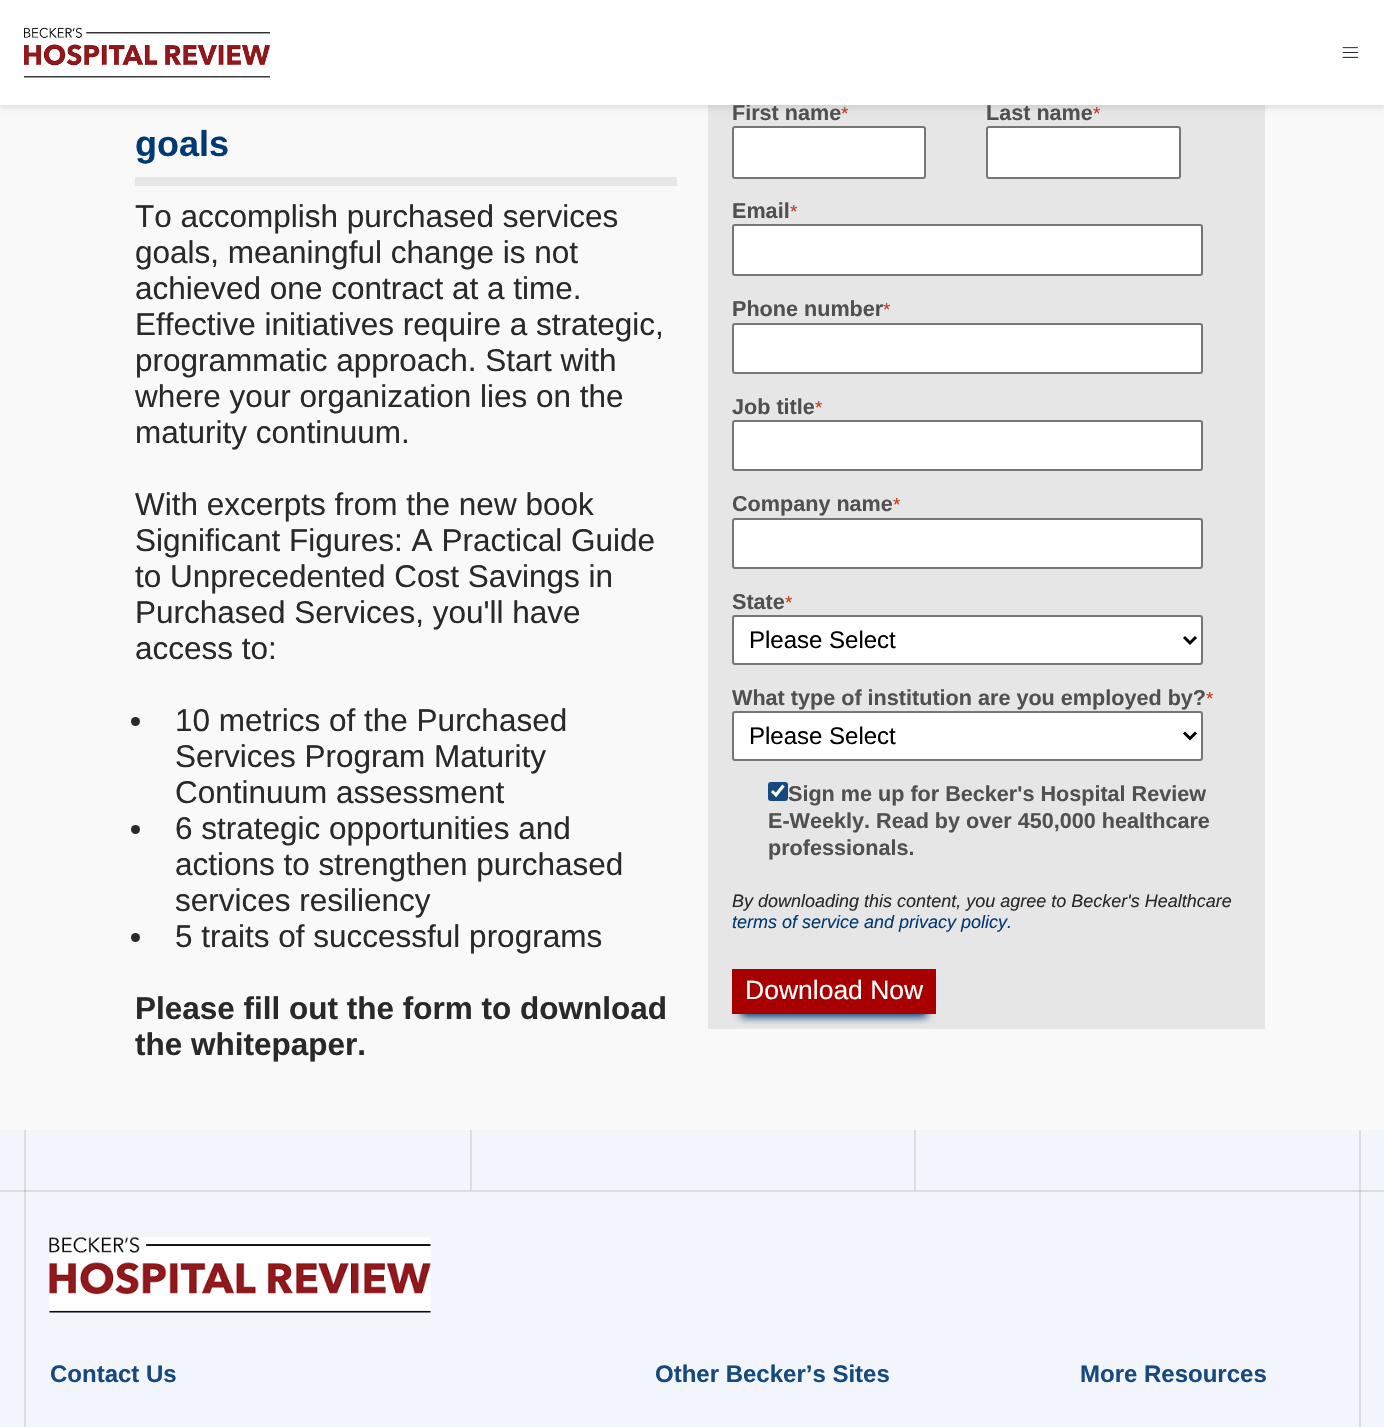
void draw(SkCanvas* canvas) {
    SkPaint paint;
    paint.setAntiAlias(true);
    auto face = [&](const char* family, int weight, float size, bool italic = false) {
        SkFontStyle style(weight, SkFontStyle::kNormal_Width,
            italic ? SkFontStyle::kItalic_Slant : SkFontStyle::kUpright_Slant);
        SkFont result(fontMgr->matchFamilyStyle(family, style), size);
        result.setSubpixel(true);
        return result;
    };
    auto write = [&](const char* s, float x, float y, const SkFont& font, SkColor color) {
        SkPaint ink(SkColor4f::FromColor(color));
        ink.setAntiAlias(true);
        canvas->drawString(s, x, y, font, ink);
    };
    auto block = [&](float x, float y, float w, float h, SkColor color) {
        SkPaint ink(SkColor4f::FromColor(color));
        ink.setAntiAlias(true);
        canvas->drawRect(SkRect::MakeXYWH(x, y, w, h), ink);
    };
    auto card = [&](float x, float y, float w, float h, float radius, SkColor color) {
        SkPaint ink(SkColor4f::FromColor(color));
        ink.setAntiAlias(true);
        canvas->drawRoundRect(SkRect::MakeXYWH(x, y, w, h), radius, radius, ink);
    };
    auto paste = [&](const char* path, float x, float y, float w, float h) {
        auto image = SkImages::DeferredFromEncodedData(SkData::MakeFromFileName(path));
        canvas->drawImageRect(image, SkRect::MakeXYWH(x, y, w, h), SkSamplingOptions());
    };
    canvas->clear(SkColorSetRGB(249, 249, 249));
    block(708, 105, 557, 924, SkColorSetRGB(230, 230, 230));
    paint.setColor(SkColorSetARGB(26, 0, 0, 0));
    paint.setMaskFilter(SkMaskFilter::MakeBlur(kNormal_SkBlurStyle, 3));
    canvas->drawRect(SkRect::MakeXYWH(0, 3, 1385, 105), paint);
    paint.setMaskFilter(nullptr);
    auto kFont1 = face("Liberation Sans", 700, 21.6f);
    write("First name", 732, 120, kFont1, SkColorSetRGB(80, 80, 80));
    block(0, 0, 1384, 105, SK_ColorWHITE);
    paste("pic1.png", 24, 27, 246, 51);
    paste("pic2.png", 1342, 47, 16, 11);
    auto kFont2 = face("Liberation Sans", 700, 36);
    write("goals", 135, 156, kFont2, SkColorSetRGB(0, 57, 116));
    block(135, 177, 542, 9, SkColorSetRGB(230, 230, 230));
    auto kFont3 = face("Liberation Sans", 400, 31.5f);
    write("To accomplish purchased services", 135, 227, kFont3, SkColorSetRGB(41, 41, 41));
    write("goals, meaningful change is not", 135, 263, kFont3, SkColorSetRGB(41, 41, 41));
    write("achieved one contract at a time.", 135, 299, kFont3, SkColorSetRGB(41, 41, 41));
    write("Effective initiatives require a strategic,", 135, 335, kFont3, SkColorSetRGB(41, 41, 41));
    write("programmatic approach. Start with", 135, 371, kFont3, SkColorSetRGB(41, 41, 41));
    write("where your organization lies on the", 135, 407, kFont3, SkColorSetRGB(41, 41, 41));
    write("maturity continuum.", 135, 443, kFont3, SkColorSetRGB(41, 41, 41));
    write("With excerpts from the new book", 135, 515, kFont3, SkColorSetRGB(41, 41, 41));
    write("Significant Figures: A Practical Guide", 135, 551, kFont3, SkColorSetRGB(41, 41, 41));
    write("to Unprecedented Cost Savings in", 135, 587, kFont3, SkColorSetRGB(41, 41, 41));
    write("Purchased Services, you'll have", 135, 623, kFont3, SkColorSetRGB(41, 41, 41));
    write("access to:", 135, 659, kFont3, SkColorSetRGB(41, 41, 41));
    paint.setColor(SkColorSetRGB(41, 41, 41));
    canvas->drawCircle(135.5f, 721.5f, 4.5f, paint);
    write("10 metrics of the Purchased", 175, 731, kFont3, SkColorSetRGB(41, 41, 41));
    write("Services Program Maturity", 175, 767, kFont3, SkColorSetRGB(41, 41, 41));
    write("Continuum assessment", 175, 803, kFont3, SkColorSetRGB(41, 41, 41));
    canvas->drawCircle(135.5f, 829.5f, 4.5f, paint);
    write("6 strategic opportunities and", 175, 839, kFont3, SkColorSetRGB(41, 41, 41));
    write("actions to strengthen purchased", 175, 875, kFont3, SkColorSetRGB(41, 41, 41));
    write("services resiliency", 175, 911, kFont3, SkColorSetRGB(41, 41, 41));
    canvas->drawCircle(135.5f, 937.5f, 4.5f, paint);
    write("5 traits of successful programs", 175, 947, kFont3, SkColorSetRGB(41, 41, 41));
    auto kFont4 = face("Liberation Sans", 700, 31.5f);
    write("Please fill out the form to download", 135, 1019, kFont4, SkColorSetRGB(41, 41, 41));
    write("the whitepaper.", 135, 1055, kFont4, SkColorSetRGB(41, 41, 41));
    auto kFont5 = face("Liberation Sans", 400, 19);
    write("*", 841, 120, kFont5, SkColorSetRGB(196, 59, 29));
    paint.setColor(SK_ColorWHITE);
    canvas->drawRoundRect(SkRect::MakeXYWH(733, 127, 192, 51), 2, 2, paint);
    paint.setStyle(SkPaint::kStroke_Style);
    paint.setStrokeWidth(2);
    paint.setColor(SkColorSetRGB(118, 118, 118));
    canvas->drawRoundRect(SkRect::MakeXYWH(733, 127, 192, 51), 2, 2, paint);
    write("Last name", 986, 120, kFont1, SkColorSetRGB(80, 80, 80));
    write("*", 1093, 120, kFont5, SkColorSetRGB(196, 59, 29));
    paint.setStyle(SkPaint::kFill_Style);
    paint.setColor(SK_ColorWHITE);
    canvas->drawRoundRect(SkRect::MakeXYWH(987, 127, 193, 51), 2, 2, paint);
    paint.setStyle(SkPaint::kStroke_Style);
    paint.setColor(SkColorSetRGB(118, 118, 118));
    canvas->drawRoundRect(SkRect::MakeXYWH(987, 127, 193, 51), 2, 2, paint);
    write("Email", 732, 218, kFont1, SkColorSetRGB(80, 80, 80));
    write("*", 790, 218, kFont5, SkColorSetRGB(196, 59, 29));
    paint.setStyle(SkPaint::kFill_Style);
    paint.setColor(SK_ColorWHITE);
    canvas->drawRoundRect(SkRect::MakeXYWH(733, 225, 469, 50), 2, 2, paint);
    paint.setStyle(SkPaint::kStroke_Style);
    paint.setColor(SkColorSetRGB(118, 118, 118));
    canvas->drawRoundRect(SkRect::MakeXYWH(733, 225, 469, 50), 2, 2, paint);
    write("Phone number", 732, 316, kFont1, SkColorSetRGB(80, 80, 80));
    write("*", 883, 316, kFont5, SkColorSetRGB(196, 59, 29));
    paint.setStyle(SkPaint::kFill_Style);
    paint.setColor(SK_ColorWHITE);
    canvas->drawRoundRect(SkRect::MakeXYWH(733, 324, 469, 49), 2, 2, paint);
    paint.setStyle(SkPaint::kStroke_Style);
    paint.setColor(SkColorSetRGB(118, 118, 118));
    canvas->drawRoundRect(SkRect::MakeXYWH(733, 324, 469, 49), 2, 2, paint);
    write("Job title", 732, 414, kFont1, SkColorSetRGB(80, 80, 80));
    write("*", 815, 414, kFont5, SkColorSetRGB(196, 59, 29));
    paint.setStyle(SkPaint::kFill_Style);
    paint.setColor(SK_ColorWHITE);
    canvas->drawRoundRect(SkRect::MakeXYWH(733, 421, 469, 49), 2, 2, paint);
    paint.setStyle(SkPaint::kStroke_Style);
    paint.setColor(SkColorSetRGB(118, 118, 118));
    canvas->drawRoundRect(SkRect::MakeXYWH(733, 421, 469, 49), 2, 2, paint);
    write("Company name", 732, 511, kFont1, SkColorSetRGB(80, 80, 80));
    write("*", 893, 511, kFont5, SkColorSetRGB(196, 59, 29));
    paint.setStyle(SkPaint::kFill_Style);
    paint.setColor(SK_ColorWHITE);
    canvas->drawRoundRect(SkRect::MakeXYWH(733, 519, 469, 49), 2, 2, paint);
    paint.setStyle(SkPaint::kStroke_Style);
    paint.setColor(SkColorSetRGB(118, 118, 118));
    canvas->drawRoundRect(SkRect::MakeXYWH(733, 519, 469, 49), 2, 2, paint);
    write("State", 732, 609, kFont1, SkColorSetRGB(80, 80, 80));
    write("*", 785, 609, kFont5, SkColorSetRGB(196, 59, 29));
    paint.setStyle(SkPaint::kFill_Style);
    paint.setColor(SK_ColorWHITE);
    canvas->drawRoundRect(SkRect::MakeXYWH(733, 616, 469, 48), 2, 2, paint);
    paint.setStyle(SkPaint::kStroke_Style);
    paint.setColor(SkColorSetRGB(118, 118, 118));
    canvas->drawRoundRect(SkRect::MakeXYWH(733, 616, 469, 48), 2, 2, paint);
    paint.setStrokeWidth(3);
    paint.setColor(SK_ColorBLACK);
    canvas->drawPath(SkPathBuilder().moveTo(1184, 637).lineTo(1190, 643).lineTo(1196, 637).detach(), paint);
    auto kFont6 = face("Liberation Sans", 400, 24);
    write("Please Select", 749, 648, kFont6, SK_ColorBLACK);
    write("What type of institution are you employed by?", 732, 705, kFont1, SkColorSetRGB(80, 80, 80));
    write("*", 1206, 705, kFont5, SkColorSetRGB(196, 59, 29));
    paint.setStyle(SkPaint::kFill_Style);
    paint.setColor(SK_ColorWHITE);
    canvas->drawRoundRect(SkRect::MakeXYWH(733, 712, 469, 48), 2, 2, paint);
    paint.setStyle(SkPaint::kStroke_Style);
    paint.setStrokeWidth(2);
    paint.setColor(SkColorSetRGB(118, 118, 118));
    canvas->drawRoundRect(SkRect::MakeXYWH(733, 712, 469, 48), 2, 2, paint);
    paint.setStrokeWidth(3);
    paint.setColor(SK_ColorBLACK);
    canvas->drawPath(SkPathBuilder().moveTo(1184, 732.5f).lineTo(1190, 738.5f).lineTo(1196, 732.5f).detach(), paint);
    write("Please Select", 749, 744, kFont6, SK_ColorBLACK);
    card(768, 782, 20, 19, 3, SkColorSetRGB(22, 73, 127));
    paint.setStrokeWidth(3.1f);
    paint.setColor(SK_ColorWHITE);
    canvas->drawPath(SkPathBuilder().moveTo(772, 791).lineTo(776, 795).lineTo(783.5f, 785.5f).detach(), paint);
    write("Sign me up for Becker's Hospital Review", 788, 801, kFont1, SkColorSetRGB(80, 80, 80));
    write("E-Weekly. Read by over 450,000 healthcare", 768, 828, kFont1, SkColorSetRGB(80, 80, 80));
    write("professionals.", 768, 855, kFont1, SkColorSetRGB(80, 80, 80));
    auto kFont7 = face("Liberation Sans", 400, 18, true);
    write("By downloading this content, you agree to Becker's Healthcare", 732, 907, kFont7, SkColorSetRGB(41, 41, 41));
    write("terms of service and privacy policy.", 732, 928, kFont7, SkColorSetRGB(0, 57, 116));
    paint.setStyle(SkPaint::kFill_Style);
    paint.setColor(SkColorSetRGB(0, 57, 116));
    paint.setMaskFilter(SkMaskFilter::MakeBlur(kNormal_SkBlurStyle, 4.5f));
    canvas->drawRect(SkRect::MakeXYWH(741, 990, 186, 27), paint);
    paint.setMaskFilter(nullptr);
    block(732, 969, 204, 45, SkColorSetRGB(168, 0, 0));
    auto kFont8 = face("Liberation Sans", 400, 26.5f);
    write("Download Now", 745, 999, kFont8, SK_ColorWHITE);
    block(0, 1130, 1384, 297, SkColorSetRGB(242, 245, 251));
    block(0, 1190, 1384, 2, SkColorSetRGB(218, 221, 226));
    block(914, 1130, 2, 60, SkColorSetRGB(218, 221, 226));
    block(470, 1130, 2, 60, SkColorSetRGB(218, 221, 226));
    block(1359, 1130, 2, 297, SkColorSetRGB(218, 221, 226));
    block(24, 1130, 2, 297, SkColorSetRGB(218, 221, 226));
    block(1359, 1190, 2, 2, SkColorSetRGB(196, 199, 203));
    block(24, 1190, 2, 2, SkColorSetRGB(196, 199, 203));
    paste("pic3.png", 49, 1237, 382, 76);
    auto kFont9 = face("Liberation Sans", 700, 24);
    write("Contact Us", 50, 1382, kFont9, SkColorSetRGB(22, 73, 127));
    write("Other Becker’s Sites", 655, 1382, kFont9, SkColorSetRGB(22, 73, 127));
    write("More Resources", 1080, 1382, kFont9, SkColorSetRGB(22, 73, 127));
}
